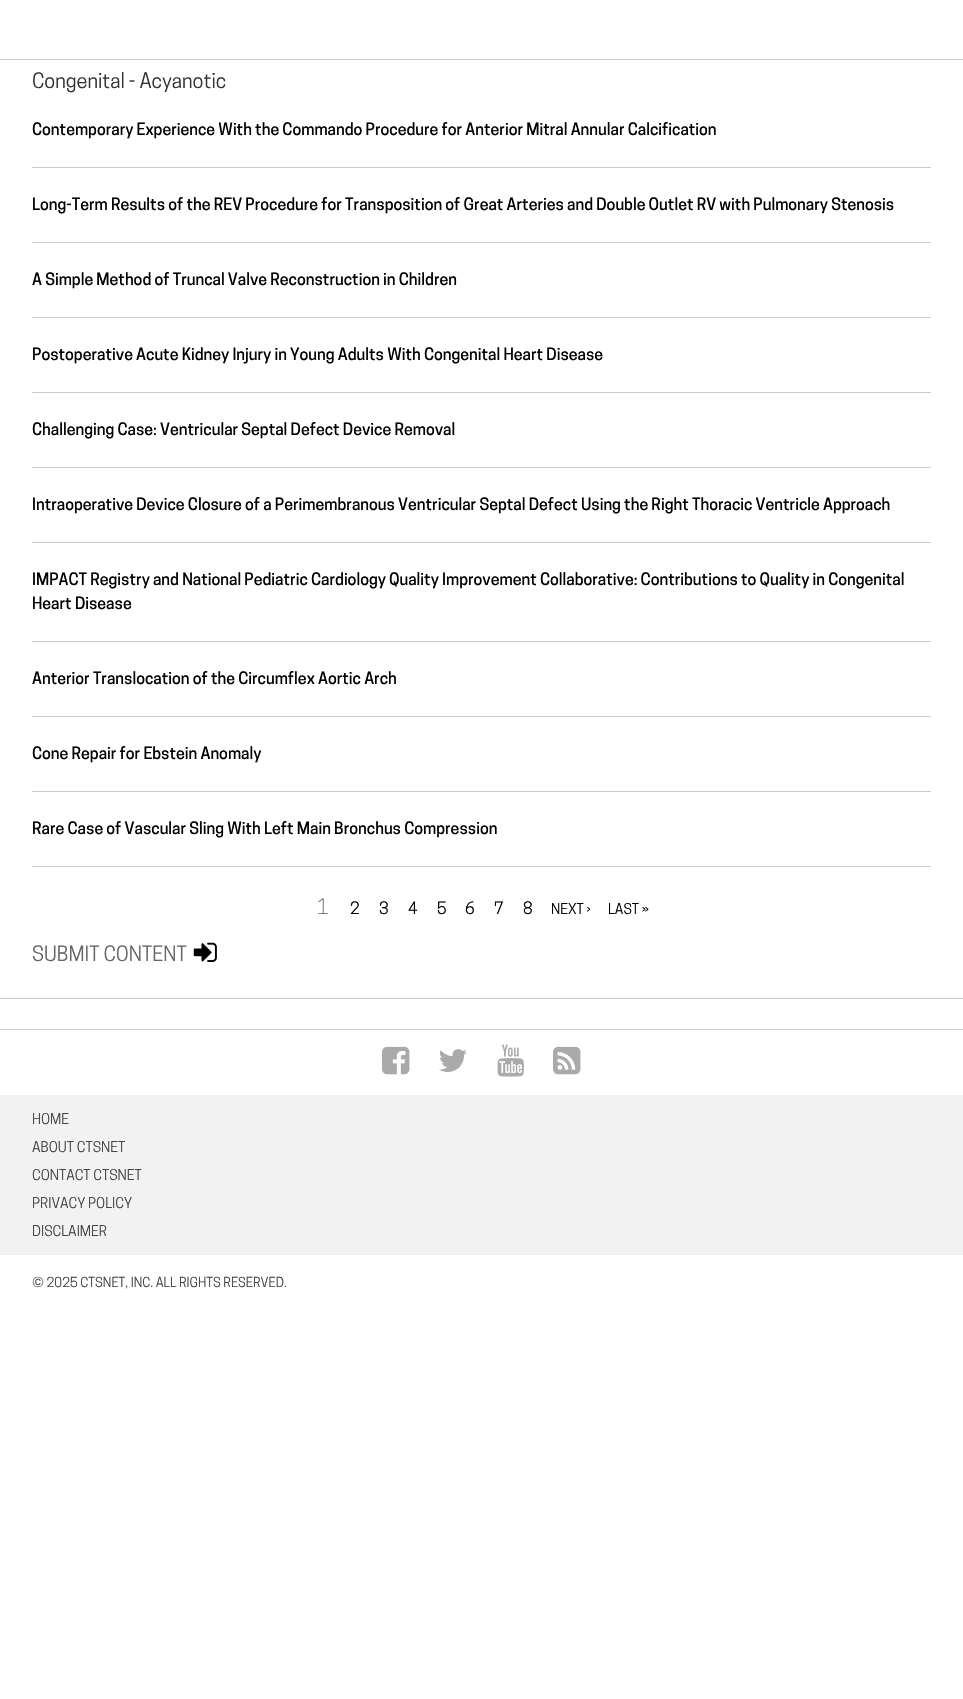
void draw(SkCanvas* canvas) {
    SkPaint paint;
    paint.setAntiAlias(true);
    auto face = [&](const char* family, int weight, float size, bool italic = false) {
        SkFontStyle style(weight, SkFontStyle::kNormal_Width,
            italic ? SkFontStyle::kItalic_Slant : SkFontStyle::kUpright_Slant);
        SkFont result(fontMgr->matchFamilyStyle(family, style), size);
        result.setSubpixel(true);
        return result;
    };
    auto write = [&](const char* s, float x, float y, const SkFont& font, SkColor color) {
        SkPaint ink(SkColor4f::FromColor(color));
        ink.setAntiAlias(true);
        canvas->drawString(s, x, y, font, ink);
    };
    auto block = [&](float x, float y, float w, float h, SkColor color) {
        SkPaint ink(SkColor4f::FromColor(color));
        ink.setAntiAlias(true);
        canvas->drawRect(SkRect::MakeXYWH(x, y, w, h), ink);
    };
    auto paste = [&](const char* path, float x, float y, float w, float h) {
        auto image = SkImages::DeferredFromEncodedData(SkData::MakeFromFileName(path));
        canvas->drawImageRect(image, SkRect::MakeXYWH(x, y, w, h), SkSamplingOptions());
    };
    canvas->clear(SK_ColorWHITE);
    block(0, 59, 963, 1, SkColorSetRGB(204, 204, 204));
    auto kFont1 = face("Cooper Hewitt", 400, 20);
    write("Congenital - Acyanotic", 32, 88, kFont1, SkColorSetRGB(51, 51, 51));
    block(32, 167, 899, 1, SkColorSetRGB(204, 204, 204));
    auto kFont2 = face("Cooper Hewitt", 500, 16);
    write("Contemporary Experience With the Commando Procedure for Anterior Mitral Annular Calcification", 32, 135, kFont2, SK_ColorBLACK);
    block(32, 242, 899, 1, SkColorSetRGB(204, 204, 204));
    write("Long-Term Results of the REV Procedure for Transposition of Great Arteries and Double Outlet RV with Pulmonary Stenosis", 32, 210, kFont2, SK_ColorBLACK);
    block(32, 317, 899, 1, SkColorSetRGB(204, 204, 204));
    write("A Simple Method of Truncal Valve Reconstruction in Children", 32, 285, kFont2, SK_ColorBLACK);
    block(32, 392, 899, 1, SkColorSetRGB(204, 204, 204));
    write("Postoperative Acute Kidney Injury in Young Adults With Congenital Heart Disease", 32, 360, kFont2, SK_ColorBLACK);
    block(32, 467, 899, 1, SkColorSetRGB(204, 204, 204));
    write("Challenging Case: Ventricular Septal Defect Device Removal", 32, 435, kFont2, SK_ColorBLACK);
    block(32, 542, 899, 1, SkColorSetRGB(204, 204, 204));
    write("Intraoperative Device Closure of a Perimembranous Ventricular Septal Defect Using the Right Thoracic Ventricle Approach", 32, 510, kFont2, SK_ColorBLACK);
    block(32, 641, 899, 1, SkColorSetRGB(204, 204, 204));
    write("IMPACT Registry and National Pediatric Cardiology Quality Improvement Collaborative: Contributions to Quality in Congenital", 32, 585, kFont2, SK_ColorBLACK);
    write("Heart Disease", 32, 609, kFont2, SK_ColorBLACK);
    block(32, 716, 899, 1, SkColorSetRGB(204, 204, 204));
    write("Anterior Translocation of the Circumflex Aortic Arch", 32, 684, kFont2, SK_ColorBLACK);
    block(32, 791, 899, 1, SkColorSetRGB(204, 204, 204));
    write("Cone Repair for Ebstein Anomaly", 32, 759, kFont2, SK_ColorBLACK);
    block(32, 866, 899, 1, SkColorSetRGB(204, 204, 204));
    write("Rare Case of Vascular Sling With Left Main Bronchus Compression", 32, 834, kFont2, SK_ColorBLACK);
    auto kFont3 = face("Cooper Hewitt", 300, 20);
    write("1", 317, 914, kFont3, SkColorSetRGB(102, 102, 102));
    auto kFont4 = face("Cooper Hewitt", 400, 16);
    write("2", 350, 914, kFont4, SK_ColorBLACK);
    write("3", 379, 914, kFont4, SK_ColorBLACK);
    write("4", 408, 914, kFont4, SK_ColorBLACK);
    write("5", 437, 914, kFont4, SK_ColorBLACK);
    write("6", 465, 914, kFont4, SK_ColorBLACK);
    write("7", 494, 914, kFont4, SK_ColorBLACK);
    write("8", 523, 914, kFont4, SK_ColorBLACK);
    auto kFont5 = face("Cooper Hewitt", 400, 14);
    write("NEXT ›", 551, 914, kFont5, SK_ColorBLACK);
    write("LAST »", 608, 914, kFont5, SK_ColorBLACK);
    block(0, 998, 963, 1, SkColorSetRGB(204, 204, 204));
    write("SUBMIT CONTENT", 32, 961, kFont1, SkColorSetRGB(102, 102, 102));
    paste("pic1.png", 193, 942, 24, 20);
    block(0, 1029, 963, 1, SkColorSetRGB(204, 204, 204));
    paste("pic2.png", 382, 1046, 28, 29);
    paste("pic3.png", 439, 1049, 28, 23);
    paste("pic4.png", 497, 1044, 27, 33);
    paste("pic5.png", 553, 1046, 28, 29);
    block(0, 1095, 963, 160, SkColorSetRGB(242, 242, 242));
    write("HOME", 32, 1124, kFont5, SkColorSetRGB(68, 68, 68));
    write("ABOUT CTSNET", 32, 1152, kFont5, SkColorSetRGB(68, 68, 68));
    write("CONTACT CTSNET", 32, 1180, kFont5, SkColorSetRGB(68, 68, 68));
    write("PRIVACY POLICY", 32, 1208, kFont5, SkColorSetRGB(68, 68, 68));
    write("DISCLAIMER", 32, 1236, kFont5, SkColorSetRGB(68, 68, 68));
    auto kFont6 = face("Cooper Hewitt", 400, 13);
    write("© 2025 CTSNET, INC. ALL RIGHTS RESERVED.", 32, 1287, kFont6, SkColorSetRGB(68, 68, 68));
}
